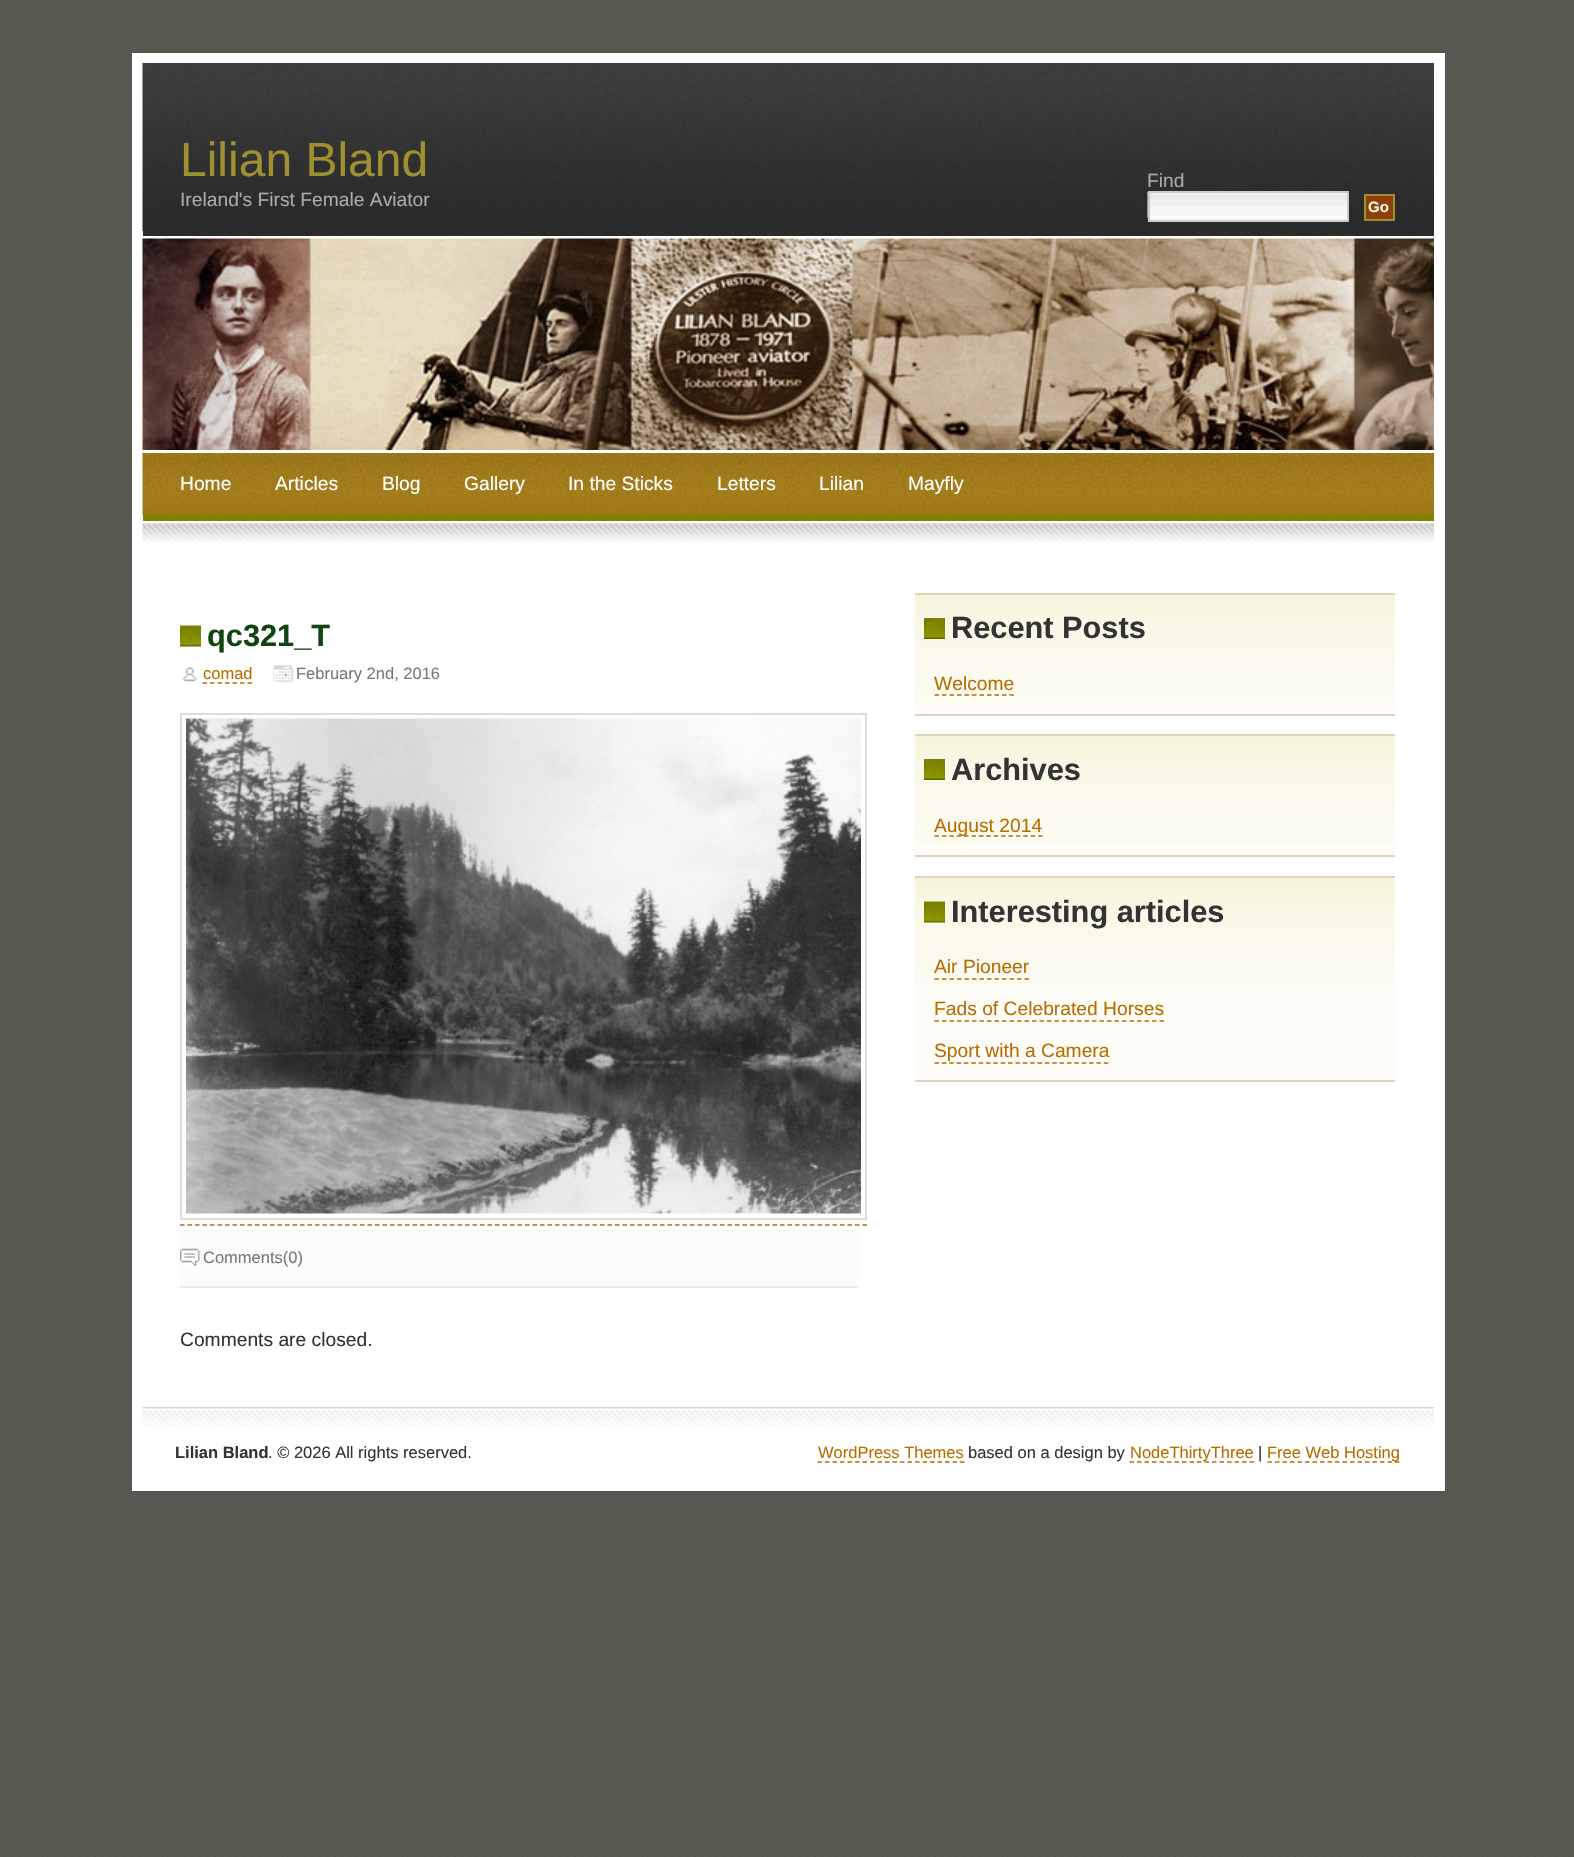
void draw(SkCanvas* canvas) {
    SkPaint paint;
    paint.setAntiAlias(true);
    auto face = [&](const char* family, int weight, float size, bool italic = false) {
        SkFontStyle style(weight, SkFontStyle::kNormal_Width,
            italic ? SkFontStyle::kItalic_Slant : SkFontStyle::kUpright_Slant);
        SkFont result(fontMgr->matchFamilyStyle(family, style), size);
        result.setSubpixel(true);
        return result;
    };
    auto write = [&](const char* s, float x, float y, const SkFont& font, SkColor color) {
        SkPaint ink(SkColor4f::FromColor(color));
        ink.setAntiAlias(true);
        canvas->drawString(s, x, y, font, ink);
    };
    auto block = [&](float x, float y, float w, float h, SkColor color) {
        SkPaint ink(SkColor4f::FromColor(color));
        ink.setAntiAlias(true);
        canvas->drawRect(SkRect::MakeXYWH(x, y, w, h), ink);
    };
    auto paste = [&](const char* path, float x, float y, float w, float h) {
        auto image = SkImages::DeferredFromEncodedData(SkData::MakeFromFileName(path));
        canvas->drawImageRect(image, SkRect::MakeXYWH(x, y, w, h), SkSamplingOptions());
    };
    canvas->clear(SK_ColorWHITE);
    paste("pic1.png", 0, 0, 1574, 1857);
    block(132, 53, 1313, 1438, SK_ColorWHITE);
    block(143, 231, 1291, 5, SkColorSetRGB(43, 43, 43));
    paste("pic2.png", 142, 63, 1292, 168);
    auto kFont1 = face("Liberation Sans", 400, 48);
    write("Lilian Bland", 180, 176, kFont1, SkColorSetRGB(159, 144, 48));
    auto kFont2 = face("Liberation Sans", 400, 19.25f);
    write("Ireland's First Female Aviator", 180, 206, kFont2, SkColorSetRGB(170, 170, 170));
    write("Find", 1147, 187, kFont2, SkColorSetRGB(170, 170, 170));
    block(1150, 217, 197, 3, SkColorSetRGB(249, 249, 249));
    paste("pic3.png", 1147, 192, 200, 26);
    paint.setStyle(SkPaint::kStroke_Style);
    paint.setStrokeWidth(2);
    paint.setColor(SkColorSetRGB(204, 204, 204));
    canvas->drawRect(SkRect::MakeXYWH(1149, 192, 199, 29), paint);
    paint.setStyle(SkPaint::kFill_Style);
    paint.setColor(SkColorSetRGB(143, 64, 8));
    canvas->drawRect(SkRect::MakeXYWH(1365, 195, 29, 25), paint);
    paint.setStyle(SkPaint::kStroke_Style);
    paint.setColor(SkColorSetRGB(159, 144, 48));
    canvas->drawRect(SkRect::MakeXYWH(1365, 195, 29, 25), paint);
    auto kFont3 = face("Liberation Sans", 700, 15);
    write("Go", 1368, 212, kFont3, SkColorSetRGB(242, 243, 222));
    paste("pic4.png", 142, 238, 1292, 212);
    block(143, 514, 1291, 7, SkColorSetRGB(127, 132, 0));
    paste("pic5.png", 142, 453, 1292, 62);
    write("Home", 180, 490, kFont2, SK_ColorWHITE);
    write("Articles", 275, 490, kFont2, SK_ColorWHITE);
    write("Blog", 382, 490, kFont2, SK_ColorWHITE);
    write("Gallery", 464, 490, kFont2, SK_ColorWHITE);
    write("In the Sticks", 568, 490, kFont2, SK_ColorWHITE);
    write("Letters", 717, 490, kFont2, SK_ColorWHITE);
    write("Lilian", 819, 490, kFont2, SK_ColorWHITE);
    write("Mayfly", 908, 490, kFont2, SK_ColorWHITE);
    paste("pic6.png", 142, 523, 1292, 20);
    block(180, 1286, 678, 2, SkColorSetRGB(234, 234, 234));
    paste("pic7.png", 180, 625, 21, 22);
    auto kFont4 = face("Liberation Sans", 700, 30.75f);
    write("qc321_T", 207, 646, kFont4, SkColorSetRGB(17, 68, 17));
    paste("pic8.png", 182, 667, 15, 15);
    auto kFont5 = face("Liberation Sans", 400, 16.5f);
    write("comad", 203, 679, kFont5, SkColorSetRGB(185, 109, 0));
    paint.setStrokeWidth(1.5f);
    paint.setColor(SkColorSetRGB(185, 109, 0));
    paint.setPathEffect(SkDashPathEffect::Make({{4.5f, 3}}, 0));
    canvas->drawPath(SkPathBuilder().moveTo(202.5f, 683).lineTo(252, 683).detach(), paint);
    paint.setPathEffect(nullptr);
    paste("pic9.png", 273, 665, 21, 18);
    write("February 2nd, 2016", 296, 679, kFont5, SkColorSetRGB(120, 120, 120));
    paint.setStrokeWidth(2);
    paint.setColor(SkColorSetRGB(220, 220, 220));
    canvas->drawRect(SkRect::MakeXYWH(181, 714, 685, 505), paint);
    paste("pic10.png", 186, 718, 675, 496);
    paint.setStrokeWidth(1.5f);
    paint.setColor(SkColorSetRGB(185, 109, 0));
    paint.setPathEffect(SkDashPathEffect::Make({{4.5f, 3}}, 0));
    canvas->drawPath(SkPathBuilder().moveTo(180, 1225).lineTo(867, 1225).detach(), paint);
    paint.setPathEffect(nullptr);
    block(180, 1229, 678, 57, SkColorSetRGB(252, 252, 252));
    paste("pic11.png", 180, 1248, 20, 18);
    write("Comments(0)", 203, 1263, kFont5, SkColorSetRGB(120, 120, 120));
    write("Comments are closed.", 180, 1346, kFont2, SkColorSetRGB(51, 51, 51));
    block(915, 703, 480, 11, SkColorSetRGB(253, 252, 246));
    paste("pic12.png", 915, 595, 480, 108);
    block(915, 593, 480, 2, SkColorSetRGB(225, 210, 189));
    block(915, 714, 480, 2, SkColorSetRGB(225, 210, 189));
    paste("pic13.png", 924, 618, 21, 21);
    write("Recent Posts", 951, 638, kFont4, SkColorSetRGB(51, 51, 51));
    write("Welcome", 934, 690, kFont2, SkColorSetRGB(185, 109, 0));
    paint.setPathEffect(SkDashPathEffect::Make({{4.5f, 3}}, 0));
    canvas->drawPath(SkPathBuilder().moveTo(934.5f, 695).lineTo(1014, 695).detach(), paint);
    paint.setPathEffect(nullptr);
    block(915, 844, 480, 11, SkColorSetRGB(253, 252, 246));
    paste("pic12.png", 915, 736, 480, 108);
    block(915, 734, 480, 2, SkColorSetRGB(225, 210, 189));
    block(915, 855, 480, 2, SkColorSetRGB(225, 210, 189));
    paste("pic13.png", 924, 759, 21, 21);
    write("Archives", 951, 780, kFont4, SkColorSetRGB(51, 51, 51));
    paint.setPathEffect(SkDashPathEffect::Make({{4.5f, 2.9f}}, 0));
    canvas->drawPath(SkPathBuilder().moveTo(934.5f, 836).lineTo(1042.5f, 836).detach(), paint);
    paint.setPathEffect(nullptr);
    write("August 2014", 934, 832, kFont2, SkColorSetRGB(185, 109, 0));
    block(915, 986, 480, 94, SkColorSetRGB(253, 252, 246));
    paste("pic14.png", 915, 878, 480, 108);
    block(915, 876, 480, 2, SkColorSetRGB(225, 210, 189));
    block(915, 1080, 480, 2, SkColorSetRGB(225, 210, 189));
    paste("pic15.png", 924, 901, 21, 22);
    write("Interesting articles", 951, 922, kFont4, SkColorSetRGB(51, 51, 51));
    write("Air Pioneer", 934, 973, kFont2, SkColorSetRGB(185, 109, 0));
    paint.setPathEffect(SkDashPathEffect::Make({{4.5f, 3}}, 0));
    canvas->drawPath(SkPathBuilder().moveTo(934.5f, 979).lineTo(1029, 979).detach(), paint);
    paint.setPathEffect(nullptr);
    write("Fads of Celebrated Horses", 934, 1015, kFont2, SkColorSetRGB(185, 109, 0));
    paint.setPathEffect(SkDashPathEffect::Make({{4.5f, 3}}, 0));
    canvas->drawPath(SkPathBuilder().moveTo(934.5f, 1021).lineTo(1164, 1021).detach(), paint);
    paint.setPathEffect(nullptr);
    write("Sport with a Camera", 934, 1057, kFont2, SkColorSetRGB(185, 109, 0));
    paint.setPathEffect(SkDashPathEffect::Make({{4.5f, 2.86f}}, 0));
    canvas->drawPath(SkPathBuilder().moveTo(934.5f, 1063).lineTo(1108.5f, 1063).detach(), paint);
    paint.setPathEffect(nullptr);
    paste("pic16.png", 142, 1407, 1292, 19);
    auto kFont6 = face("Liberation Sans", 700, 16.5f);
    write("Lilian Bland", 175, 1458, kFont6, SkColorSetRGB(51, 51, 51));
    write(". © 2026 All rights reserved.", 268, 1458, kFont5, SkColorSetRGB(51, 51, 51));
    write("WordPress Themes", 818, 1458, kFont5, SkColorSetRGB(185, 109, 0));
    paint.setPathEffect(SkDashPathEffect::Make({{4.5f, 3}}, 0));
    canvas->drawPath(SkPathBuilder().moveTo(817.5f, 1462).lineTo(964.5f, 1462).detach(), paint);
    paint.setPathEffect(nullptr);
    write("based on a design by", 968, 1458, kFont5, SkColorSetRGB(51, 51, 51));
    paint.setPathEffect(SkDashPathEffect::Make({{4.5f, 3}}, 0));
    canvas->drawPath(SkPathBuilder().moveTo(1129.5f, 1462).lineTo(1254, 1462).detach(), paint);
    paint.setPathEffect(nullptr);
    write("NodeThirtyThree", 1130, 1458, kFont5, SkColorSetRGB(185, 109, 0));
    write("|", 1258, 1458, kFont5, SkColorSetRGB(51, 51, 51));
    paint.setPathEffect(SkDashPathEffect::Make({{4.5f, 3}}, 0));
    canvas->drawPath(SkPathBuilder().moveTo(1267.5f, 1462).lineTo(1399.5f, 1462).detach(), paint);
    paint.setPathEffect(nullptr);
    write("Free Web Hosting", 1267, 1458, kFont5, SkColorSetRGB(185, 109, 0));
}
